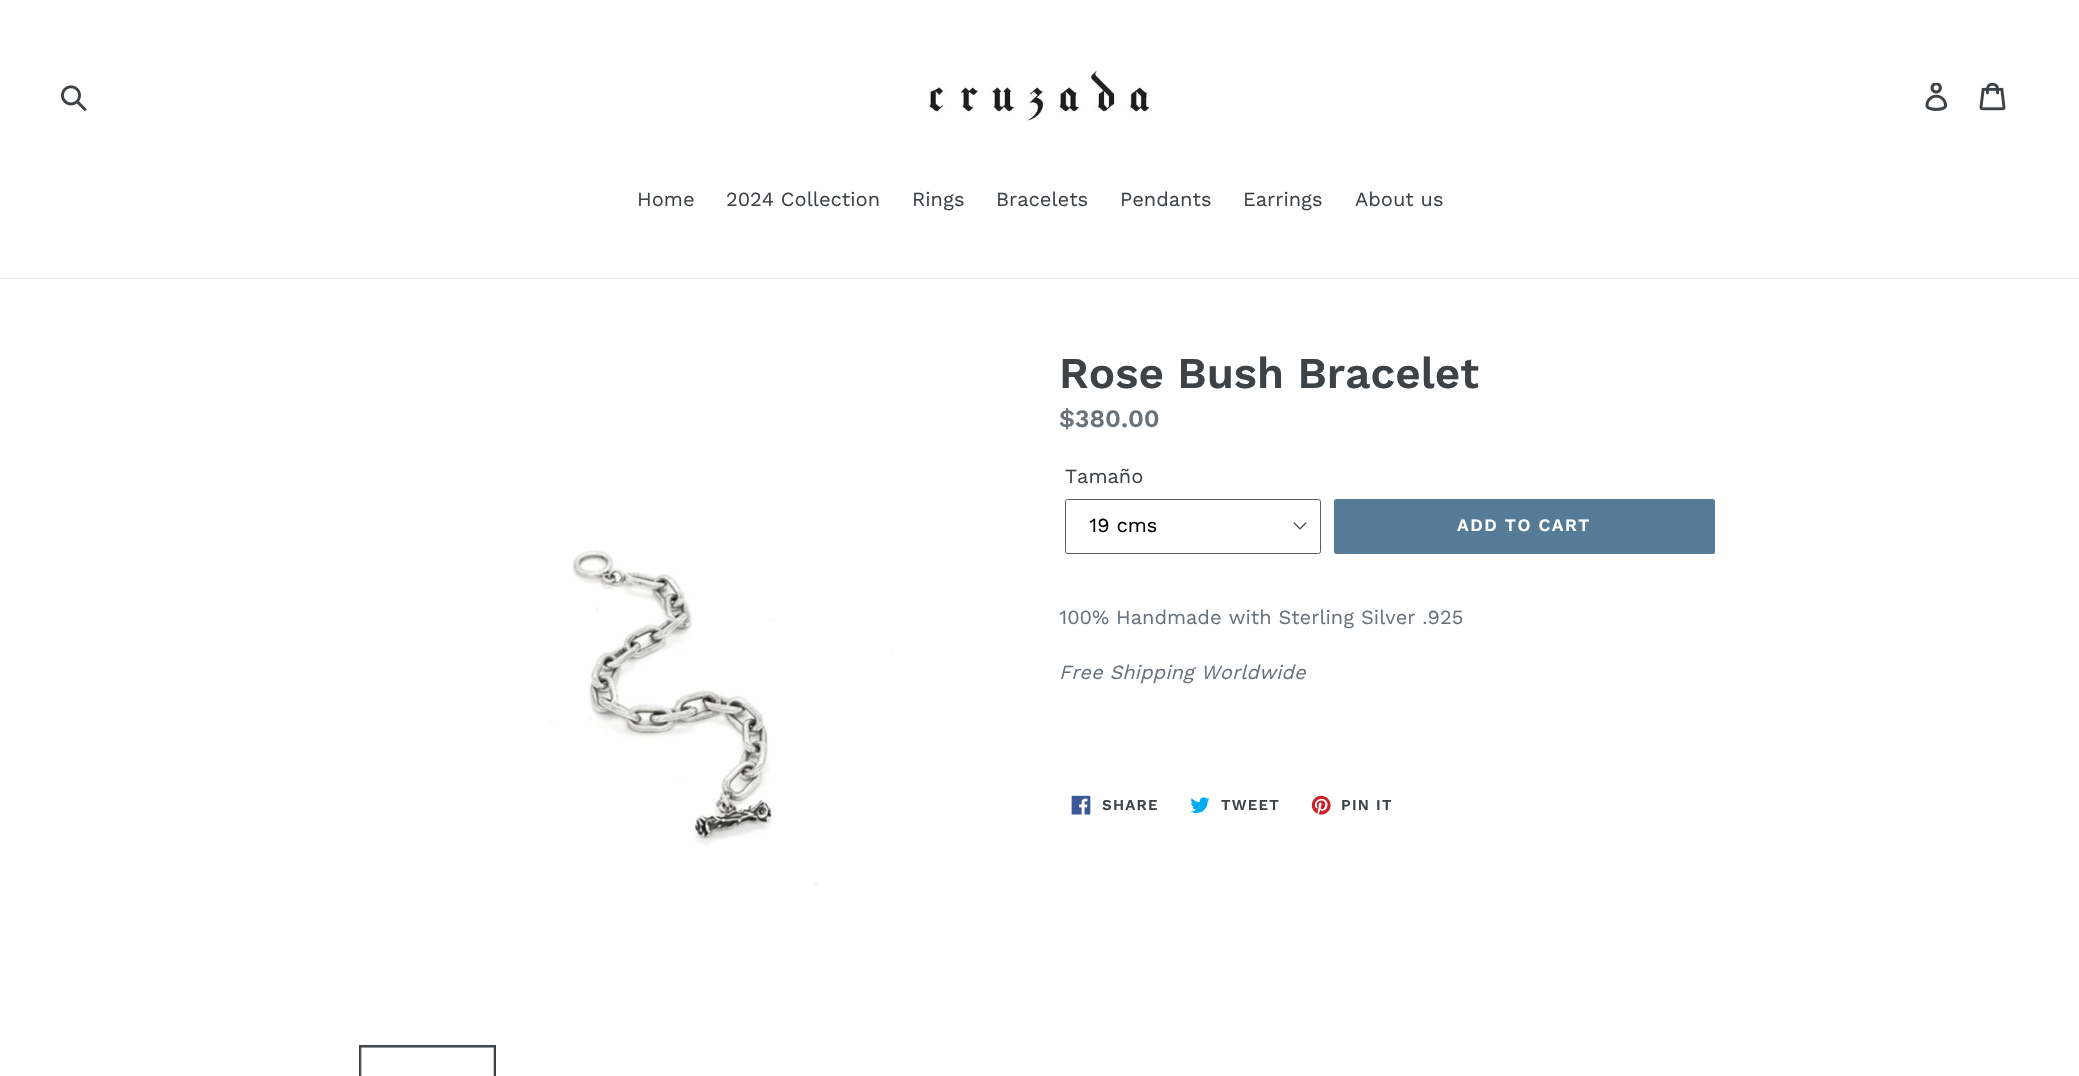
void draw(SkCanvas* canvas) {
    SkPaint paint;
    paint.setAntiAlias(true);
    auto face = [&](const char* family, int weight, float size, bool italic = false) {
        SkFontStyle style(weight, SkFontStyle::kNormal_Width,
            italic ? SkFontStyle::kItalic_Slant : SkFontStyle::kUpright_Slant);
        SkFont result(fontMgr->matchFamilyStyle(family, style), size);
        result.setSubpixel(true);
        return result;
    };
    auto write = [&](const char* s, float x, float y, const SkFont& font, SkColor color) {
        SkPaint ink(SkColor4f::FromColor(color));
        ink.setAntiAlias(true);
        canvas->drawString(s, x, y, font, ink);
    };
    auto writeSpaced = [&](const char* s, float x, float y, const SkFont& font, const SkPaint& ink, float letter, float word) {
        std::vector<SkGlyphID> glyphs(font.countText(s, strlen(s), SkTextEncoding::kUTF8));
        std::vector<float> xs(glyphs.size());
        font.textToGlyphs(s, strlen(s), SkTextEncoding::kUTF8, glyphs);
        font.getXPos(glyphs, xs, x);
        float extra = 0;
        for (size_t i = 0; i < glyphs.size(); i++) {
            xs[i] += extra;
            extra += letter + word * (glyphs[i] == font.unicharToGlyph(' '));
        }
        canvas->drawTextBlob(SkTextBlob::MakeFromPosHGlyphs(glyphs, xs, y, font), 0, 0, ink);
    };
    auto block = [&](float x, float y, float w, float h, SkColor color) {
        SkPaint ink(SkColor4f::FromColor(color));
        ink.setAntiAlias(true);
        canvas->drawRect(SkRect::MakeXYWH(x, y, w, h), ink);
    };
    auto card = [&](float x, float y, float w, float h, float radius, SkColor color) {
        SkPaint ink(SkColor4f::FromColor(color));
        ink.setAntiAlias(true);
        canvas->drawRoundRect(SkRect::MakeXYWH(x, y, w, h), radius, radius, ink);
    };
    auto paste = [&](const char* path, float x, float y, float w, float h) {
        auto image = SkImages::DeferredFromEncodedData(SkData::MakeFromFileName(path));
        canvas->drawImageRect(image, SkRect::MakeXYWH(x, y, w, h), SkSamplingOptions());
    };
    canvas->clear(SK_ColorWHITE);
    paste("pic1.png", 61, 85, 26, 26);
    paste("pic2.png", 929, 70, 221, 51);
    paste("pic3.png", 1925, 83, 23, 28);
    paste("pic4.png", 1979, 83, 27, 28);
    block(0, 278, 2079, 1, SkColorSetRGB(232, 233, 235));
    auto kFont1 = face("Work Sans", 400, 20);
    write("Home", 637, 206, kFont1, SkColorSetRGB(61, 66, 70));
    write("2024 Collection", 726, 206, kFont1, SkColorSetRGB(61, 66, 70));
    write("Rings", 912, 206, kFont1, SkColorSetRGB(61, 66, 70));
    write("Bracelets", 996, 206, kFont1, SkColorSetRGB(61, 66, 70));
    write("Pendants", 1120, 206, kFont1, SkColorSetRGB(61, 66, 70));
    write("Earrings", 1243, 206, kFont1, SkColorSetRGB(61, 66, 70));
    write("About us", 1355, 206, kFont1, SkColorSetRGB(61, 66, 70));
    paste("pic5.png", 550, 550, 342, 336);
    paint.setStyle(SkPaint::kStroke_Style);
    paint.setStrokeWidth(3);
    paint.setColor(SkColorSetRGB(61, 66, 70));
    canvas->drawRect(SkRect::MakeXYWH(360.5f, 1046.5f, 134, 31), paint);
    paste("pic6.png", 360, 1046, 134, 30);
    auto kFont2 = face("Work Sans", 600, 43.75f);
    write("Rose Bush Bracelet", 1059, 388, kFont2, SkColorSetRGB(61, 66, 70));
    auto kFont3 = face("Work Sans", 600, 25);
    write("$380.00", 1059, 427, kFont3, SkColorSetRGB(105, 114, 123));
    write("Tamaño", 1065, 483, kFont1, SkColorSetRGB(61, 66, 70));
    paste("pic7.png", 1293, 522, 14, 8);
    paint.setStrokeWidth(1);
    paint.setColor(SkColorSetRGB(90, 94, 98));
    canvas->drawRoundRect(SkRect::MakeXYWH(1065.5f, 499.5f, 255, 54), 2, 2, paint);
    write("19 cms", 1089, 532, kFont1, SK_ColorBLACK);
    card(1334, 499, 381, 55, 2.5f, SkColorSetRGB(85, 123, 151));
    auto kFont4 = face("Work Sans", 600, 17.5f);
    paint.setStyle(SkPaint::kFill_Style);
    paint.setColor(SK_ColorWHITE);
    writeSpaced("ADD TO CART", 1457, 531, kFont4, paint, 1.4f, 0);
    write("100% Handmade with Sterling Silver .925", 1059, 624, kFont1, SkColorSetRGB(105, 114, 123));
    auto kFont5 = face("Work Sans", 400, 20, true);
    write("Free Shipping Worldwide", 1059, 679, kFont5, SkColorSetRGB(105, 114, 123));
    paste("pic8.png", 1071, 795, 20, 20);
    auto kFont6 = face("Work Sans", 600, 15);
    paint.setColor(SkColorSetRGB(61, 66, 70));
    writeSpaced("SHARE", 1102, 810, kFont6, paint, 1.25f, 0);
    paste("pic9.png", 1190, 797, 20, 16);
    writeSpaced("TWEET", 1221, 810, kFont6, paint, 1.25f, 0);
    paste("pic10.png", 1311, 795, 20, 20);
    writeSpaced("PIN IT", 1341, 810, kFont6, paint, 1.25f, 0);
}
